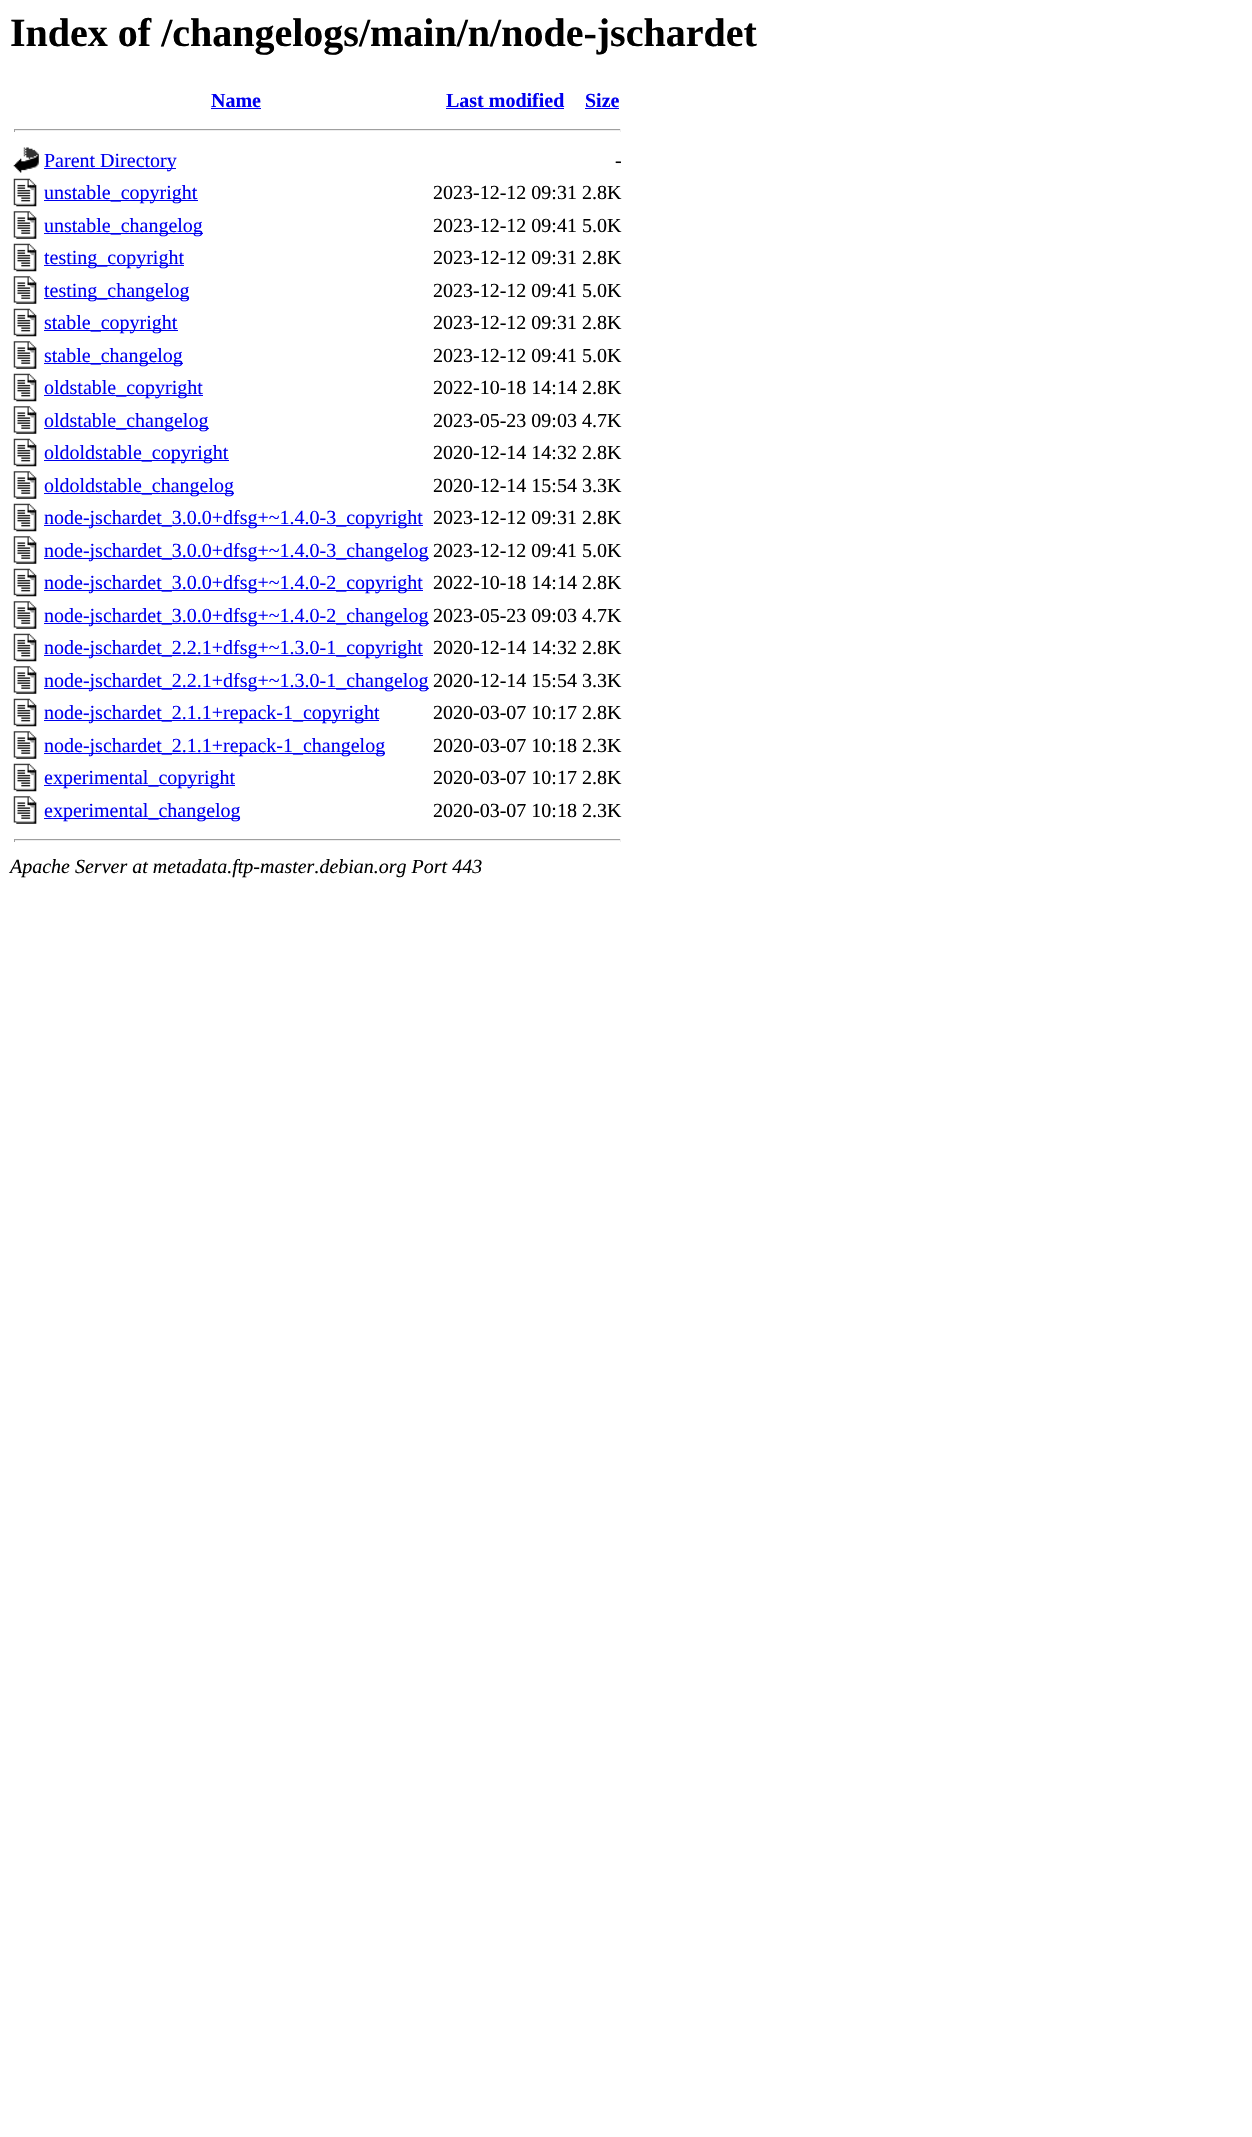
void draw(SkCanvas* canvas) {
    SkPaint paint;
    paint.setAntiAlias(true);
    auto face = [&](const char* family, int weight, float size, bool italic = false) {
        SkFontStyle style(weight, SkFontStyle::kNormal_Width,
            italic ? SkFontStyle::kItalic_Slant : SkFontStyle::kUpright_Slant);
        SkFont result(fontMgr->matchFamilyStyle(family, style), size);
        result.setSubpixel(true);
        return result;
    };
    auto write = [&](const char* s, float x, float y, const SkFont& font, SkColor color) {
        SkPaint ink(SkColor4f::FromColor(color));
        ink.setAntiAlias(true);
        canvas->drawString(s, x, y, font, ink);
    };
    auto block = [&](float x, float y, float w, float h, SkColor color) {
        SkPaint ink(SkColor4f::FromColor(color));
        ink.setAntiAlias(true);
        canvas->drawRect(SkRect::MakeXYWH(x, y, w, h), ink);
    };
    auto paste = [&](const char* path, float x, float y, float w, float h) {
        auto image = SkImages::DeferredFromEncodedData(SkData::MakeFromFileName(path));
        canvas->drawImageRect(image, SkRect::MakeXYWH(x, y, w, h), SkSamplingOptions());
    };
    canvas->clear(SK_ColorWHITE);
    auto kFont1 = face("Liberation Serif", 700, 40);
    write("Index of /changelogs/main/n/node-jschardet", 10, 46, kFont1, SK_ColorBLACK);
    auto kFont2 = face("Liberation Serif", 700, 20);
    write("Name", 211, 107, kFont2, SkColorSetRGB(0, 0, 238));
    block(211, 108, 50, 1, SkColorSetRGB(0, 0, 238));
    write("Last modified", 446, 107, kFont2, SkColorSetRGB(0, 0, 238));
    block(446, 108, 118, 1, SkColorSetRGB(0, 0, 238));
    write("Size", 585, 107, kFont2, SkColorSetRGB(0, 0, 238));
    block(585, 108, 34, 1, SkColorSetRGB(0, 0, 238));
    block(14, 129, 607, 1, SkColorSetRGB(159, 159, 159));
    block(620, 129, 1, 3, SkColorSetRGB(238, 238, 238));
    block(14, 130, 607, 1, SkColorSetRGB(238, 238, 238));
    block(14, 129, 1, 3, SkColorSetRGB(159, 159, 159));
    paste("pic1.png", 13, 147, 26, 26);
    block(44, 168, 132, 1, SkColorSetRGB(0, 0, 238));
    auto kFont3 = face("Liberation Serif", 400, 20);
    write("Parent Directory", 44, 167, kFont3, SkColorSetRGB(0, 0, 238));
    write("-", 615, 167, kFont3, SK_ColorBLACK);
    paste("pic2.png", 13, 178, 24, 29);
    block(44, 200, 154, 1, SkColorSetRGB(0, 0, 238));
    write("unstable_copyright", 44, 199, kFont3, SkColorSetRGB(0, 0, 238));
    write("2023-12-12 09:31 2.8K", 433, 199, kFont3, SK_ColorBLACK);
    paste("pic3.png", 13, 211, 24, 28);
    block(44, 233, 159, 1, SkColorSetRGB(0, 0, 238));
    write("unstable_changelog", 44, 232, kFont3, SkColorSetRGB(0, 0, 238));
    write("2023-12-12 09:41 5.0K", 433, 232, kFont3, SK_ColorBLACK);
    paste("pic2.png", 13, 243, 24, 29);
    block(44, 265, 140, 1, SkColorSetRGB(0, 0, 238));
    write("testing_copyright", 44, 264, kFont3, SkColorSetRGB(0, 0, 238));
    write("2023-12-12 09:31 2.8K", 433, 264, kFont3, SK_ColorBLACK);
    paste("pic4.png", 13, 276, 24, 28);
    block(44, 298, 145, 1, SkColorSetRGB(0, 0, 238));
    write("testing_changelog", 44, 297, kFont3, SkColorSetRGB(0, 0, 238));
    write("2023-12-12 09:41 5.0K", 433, 297, kFont3, SK_ColorBLACK);
    paste("pic2.png", 13, 308, 24, 29);
    block(44, 330, 134, 1, SkColorSetRGB(0, 0, 238));
    write("stable_copyright", 44, 329, kFont3, SkColorSetRGB(0, 0, 238));
    write("2023-12-12 09:31 2.8K", 433, 329, kFont3, SK_ColorBLACK);
    paste("pic3.png", 13, 341, 24, 28);
    block(44, 363, 139, 1, SkColorSetRGB(0, 0, 238));
    write("stable_changelog", 44, 362, kFont3, SkColorSetRGB(0, 0, 238));
    write("2023-12-12 09:41 5.0K", 433, 362, kFont3, SK_ColorBLACK);
    paste("pic2.png", 13, 373, 24, 29);
    block(44, 395, 159, 1, SkColorSetRGB(0, 0, 238));
    write("oldstable_copyright", 44, 394, kFont3, SkColorSetRGB(0, 0, 238));
    write("2022-10-18 14:14 2.8K", 433, 394, kFont3, SK_ColorBLACK);
    paste("pic3.png", 13, 406, 24, 28);
    block(44, 428, 165, 1, SkColorSetRGB(0, 0, 238));
    write("oldstable_changelog", 44, 427, kFont3, SkColorSetRGB(0, 0, 238));
    write("2023-05-23 09:03 4.7K", 433, 427, kFont3, SK_ColorBLACK);
    paste("pic2.png", 13, 438, 24, 29);
    block(44, 460, 185, 1, SkColorSetRGB(0, 0, 238));
    write("oldoldstable_copyright", 44, 459, kFont3, SkColorSetRGB(0, 0, 238));
    write("2020-12-14 14:32 2.8K", 433, 459, kFont3, SK_ColorBLACK);
    paste("pic3.png", 13, 471, 24, 28);
    block(44, 493, 190, 1, SkColorSetRGB(0, 0, 238));
    write("oldoldstable_changelog", 44, 492, kFont3, SkColorSetRGB(0, 0, 238));
    write("2020-12-14 15:54 3.3K", 433, 492, kFont3, SK_ColorBLACK);
    paste("pic2.png", 13, 503, 24, 29);
    block(44, 525, 379, 1, SkColorSetRGB(0, 0, 238));
    write("node-jschardet_3.0.0+dfsg+~1.4.0-3_copyright", 44, 524, kFont3, SkColorSetRGB(0, 0, 238));
    write("2023-12-12 09:31 2.8K", 433, 524, kFont3, SK_ColorBLACK);
    paste("pic3.png", 13, 536, 24, 28);
    block(44, 558, 385, 1, SkColorSetRGB(0, 0, 238));
    write("node-jschardet_3.0.0+dfsg+~1.4.0-3_changelog", 44, 557, kFont3, SkColorSetRGB(0, 0, 238));
    write("2023-12-12 09:41 5.0K", 433, 557, kFont3, SK_ColorBLACK);
    paste("pic2.png", 13, 568, 24, 29);
    block(44, 590, 379, 1, SkColorSetRGB(0, 0, 238));
    write("node-jschardet_3.0.0+dfsg+~1.4.0-2_copyright", 44, 589, kFont3, SkColorSetRGB(0, 0, 238));
    write("2022-10-18 14:14 2.8K", 433, 589, kFont3, SK_ColorBLACK);
    paste("pic3.png", 13, 601, 24, 28);
    block(44, 623, 385, 1, SkColorSetRGB(0, 0, 238));
    write("node-jschardet_3.0.0+dfsg+~1.4.0-2_changelog", 44, 622, kFont3, SkColorSetRGB(0, 0, 238));
    write("2023-05-23 09:03 4.7K", 433, 622, kFont3, SK_ColorBLACK);
    paste("pic2.png", 13, 633, 24, 29);
    block(44, 655, 379, 1, SkColorSetRGB(0, 0, 238));
    write("node-jschardet_2.2.1+dfsg+~1.3.0-1_copyright", 44, 654, kFont3, SkColorSetRGB(0, 0, 238));
    write("2020-12-14 14:32 2.8K", 433, 654, kFont3, SK_ColorBLACK);
    paste("pic3.png", 13, 666, 24, 28);
    block(44, 688, 385, 1, SkColorSetRGB(0, 0, 238));
    write("node-jschardet_2.2.1+dfsg+~1.3.0-1_changelog", 44, 687, kFont3, SkColorSetRGB(0, 0, 238));
    write("2020-12-14 15:54 3.3K", 433, 687, kFont3, SK_ColorBLACK);
    paste("pic2.png", 13, 698, 24, 29);
    block(44, 720, 335, 1, SkColorSetRGB(0, 0, 238));
    write("node-jschardet_2.1.1+repack-1_copyright", 44, 719, kFont3, SkColorSetRGB(0, 0, 238));
    write("2020-03-07 10:17 2.8K", 433, 719, kFont3, SK_ColorBLACK);
    paste("pic3.png", 13, 731, 24, 28);
    block(44, 753, 341, 1, SkColorSetRGB(0, 0, 238));
    write("node-jschardet_2.1.1+repack-1_changelog", 44, 752, kFont3, SkColorSetRGB(0, 0, 238));
    write("2020-03-07 10:18 2.3K", 433, 752, kFont3, SK_ColorBLACK);
    paste("pic2.png", 13, 763, 24, 29);
    block(44, 785, 191, 1, SkColorSetRGB(0, 0, 238));
    write("experimental_copyright", 44, 784, kFont3, SkColorSetRGB(0, 0, 238));
    write("2020-03-07 10:17 2.8K", 433, 784, kFont3, SK_ColorBLACK);
    paste("pic3.png", 13, 796, 24, 28);
    block(44, 818, 196, 1, SkColorSetRGB(0, 0, 238));
    write("experimental_changelog", 44, 817, kFont3, SkColorSetRGB(0, 0, 238));
    write("2020-03-07 10:18 2.3K", 433, 817, kFont3, SK_ColorBLACK);
    block(14, 839, 607, 1, SkColorSetRGB(159, 159, 159));
    block(620, 839, 1, 3, SkColorSetRGB(238, 238, 238));
    block(14, 840, 607, 1, SkColorSetRGB(238, 238, 238));
    block(14, 839, 1, 3, SkColorSetRGB(159, 159, 159));
    auto kFont4 = face("Liberation Serif", 400, 20, true);
    write("Apache Server at metadata.ftp-master.debian.org Port 443", 10, 873, kFont4, SK_ColorBLACK);
}
